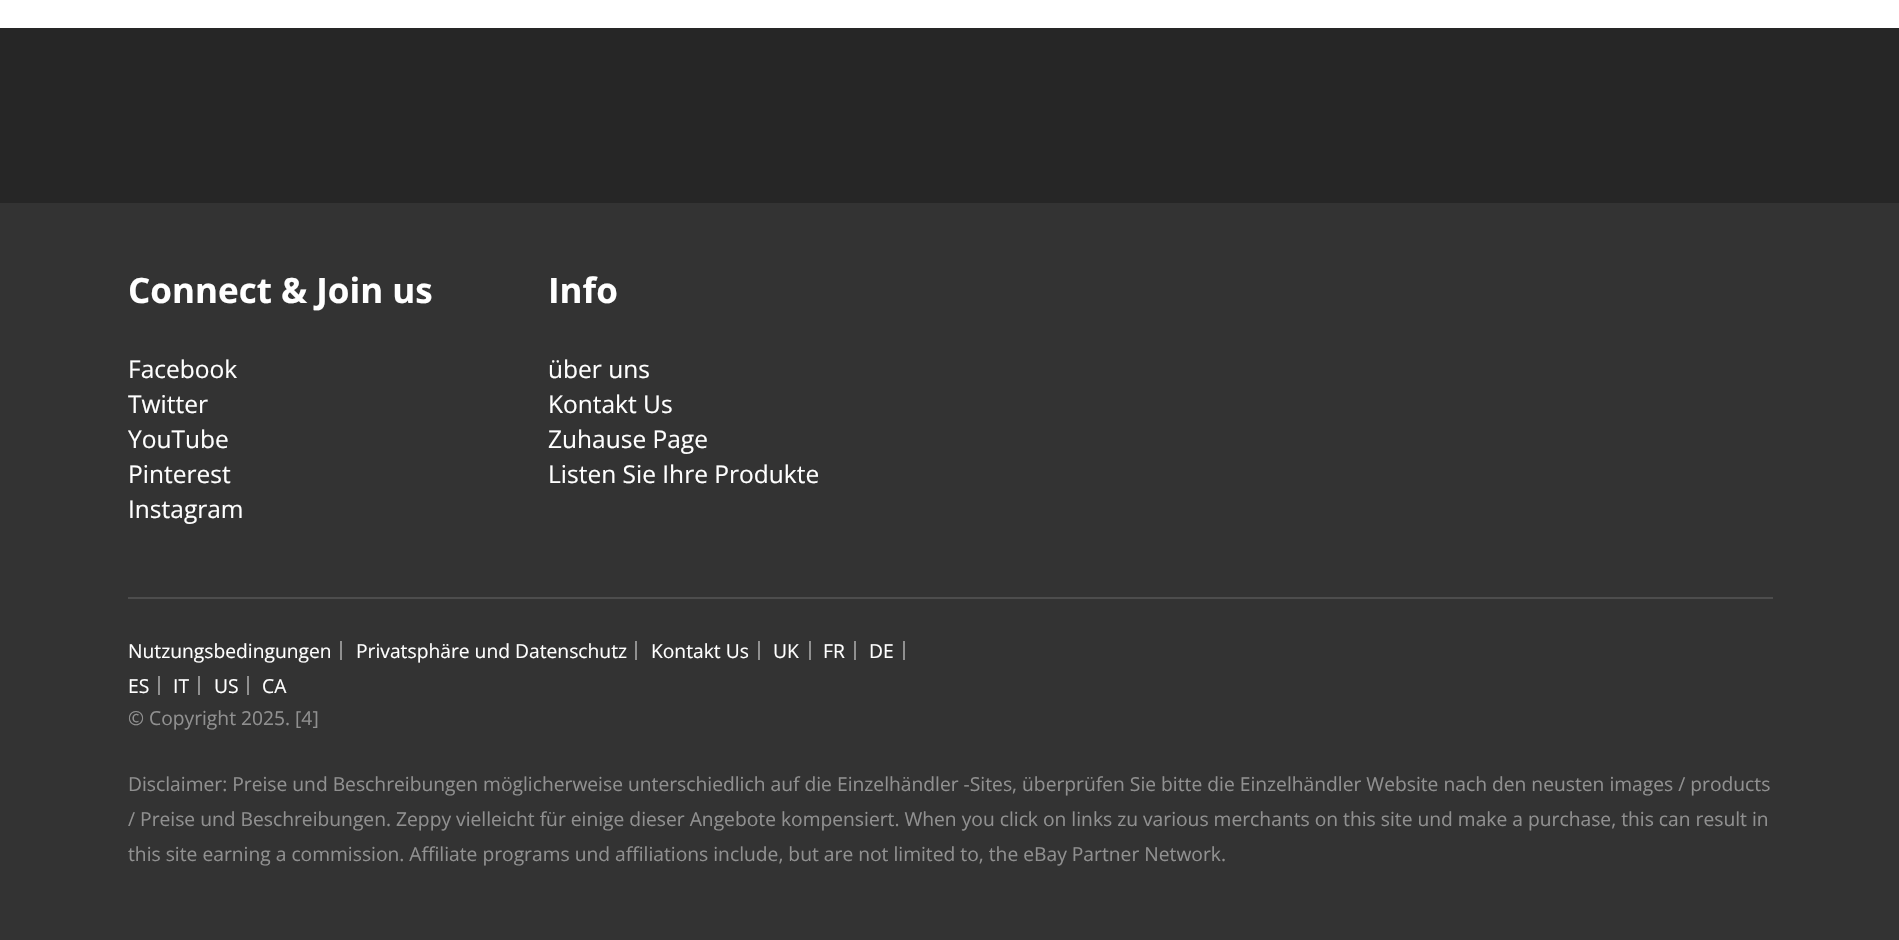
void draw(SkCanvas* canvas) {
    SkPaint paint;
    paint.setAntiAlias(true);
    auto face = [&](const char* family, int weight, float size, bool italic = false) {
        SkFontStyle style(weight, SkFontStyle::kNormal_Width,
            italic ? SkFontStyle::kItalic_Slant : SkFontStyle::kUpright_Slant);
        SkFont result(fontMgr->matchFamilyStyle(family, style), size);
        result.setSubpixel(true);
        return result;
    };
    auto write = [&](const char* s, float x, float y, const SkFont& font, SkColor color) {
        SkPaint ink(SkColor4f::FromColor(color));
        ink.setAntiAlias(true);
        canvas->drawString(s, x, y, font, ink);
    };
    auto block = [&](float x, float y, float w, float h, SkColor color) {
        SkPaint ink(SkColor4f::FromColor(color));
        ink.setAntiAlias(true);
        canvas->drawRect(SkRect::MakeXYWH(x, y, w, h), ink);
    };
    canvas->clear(SK_ColorWHITE);
    block(0, 28, 1899, 175, SkColorSetRGB(38, 38, 38));
    block(0, 203, 1899, 737, SkColorSetRGB(51, 51, 51));
    auto kFont1 = face("Open Sans", 700, 35);
    write("Connect & Join us", 128, 303, kFont1, SK_ColorWHITE);
    auto kFont2 = face("Open Sans", 400, 24.5f);
    write("Facebook", 128, 378, kFont2, SK_ColorWHITE);
    write("Twitter", 128, 413, kFont2, SK_ColorWHITE);
    write("YouTube", 128, 448, kFont2, SK_ColorWHITE);
    write("Pinterest", 128, 483, kFont2, SK_ColorWHITE);
    write("Instagram", 128, 518, kFont2, SK_ColorWHITE);
    write("Info", 548, 303, kFont1, SK_ColorWHITE);
    write("über uns", 548, 378, kFont2, SK_ColorWHITE);
    write("Kontakt Us", 548, 413, kFont2, SK_ColorWHITE);
    write("Zuhause Page", 548, 448, kFont2, SK_ColorWHITE);
    write("Listen Sie Ihre Produkte", 548, 483, kFont2, SK_ColorWHITE);
    block(128, 597, 1645, 2, SkColorSetRGB(77, 77, 77));
    block(340, 641, 2, 19, SkColorSetRGB(144, 144, 144));
    auto kFont3 = face("Open Sans", 400, 19.25f);
    write("Nutzungsbedingungen", 128, 658, kFont3, SK_ColorWHITE);
    block(635, 641, 2, 19, SkColorSetRGB(144, 144, 144));
    write("Privatsphäre und Datenschutz", 356, 658, kFont3, SK_ColorWHITE);
    block(758, 641, 2, 19, SkColorSetRGB(144, 144, 144));
    write("Kontakt Us", 651, 658, kFont3, SK_ColorWHITE);
    block(809, 641, 2, 19, SkColorSetRGB(144, 144, 144));
    write("UK", 773, 658, kFont3, SK_ColorWHITE);
    block(854, 641, 2, 19, SkColorSetRGB(144, 144, 144));
    write("FR", 823, 658, kFont3, SK_ColorWHITE);
    block(903, 641, 2, 19, SkColorSetRGB(144, 144, 144));
    write("DE", 869, 658, kFont3, SK_ColorWHITE);
    block(158, 676, 2, 19, SkColorSetRGB(144, 144, 144));
    write("ES", 128, 693, kFont3, SK_ColorWHITE);
    block(198, 676, 2, 19, SkColorSetRGB(144, 144, 144));
    write("IT", 173, 693, kFont3, SK_ColorWHITE);
    block(247, 676, 2, 19, SkColorSetRGB(144, 144, 144));
    write("US", 214, 693, kFont3, SK_ColorWHITE);
    write("CA", 262, 693, kFont3, SK_ColorWHITE);
    write("© Copyright 2025. [4]", 128, 725, kFont3, SkColorSetRGB(144, 144, 144));
    write("Disclaimer: Preise und Beschreibungen möglicherweise unterschiedlich auf die Einzelhändler -Sites, überprüfen Sie bitte die Einzelhändler Website nach den neusten images / products", 128, 791, kFont3, SkColorSetRGB(144, 144, 144));
    write("/ Preise und Beschreibungen. Zeppy vielleicht für einige dieser Angebote kompensiert. When you click on links zu various merchants on this site und make a purchase, this can result in", 128, 826, kFont3, SkColorSetRGB(144, 144, 144));
    write("this site earning a commission. Affiliate programs und affiliations include, but are not limited to, the eBay Partner Network.", 128, 861, kFont3, SkColorSetRGB(144, 144, 144));
}
